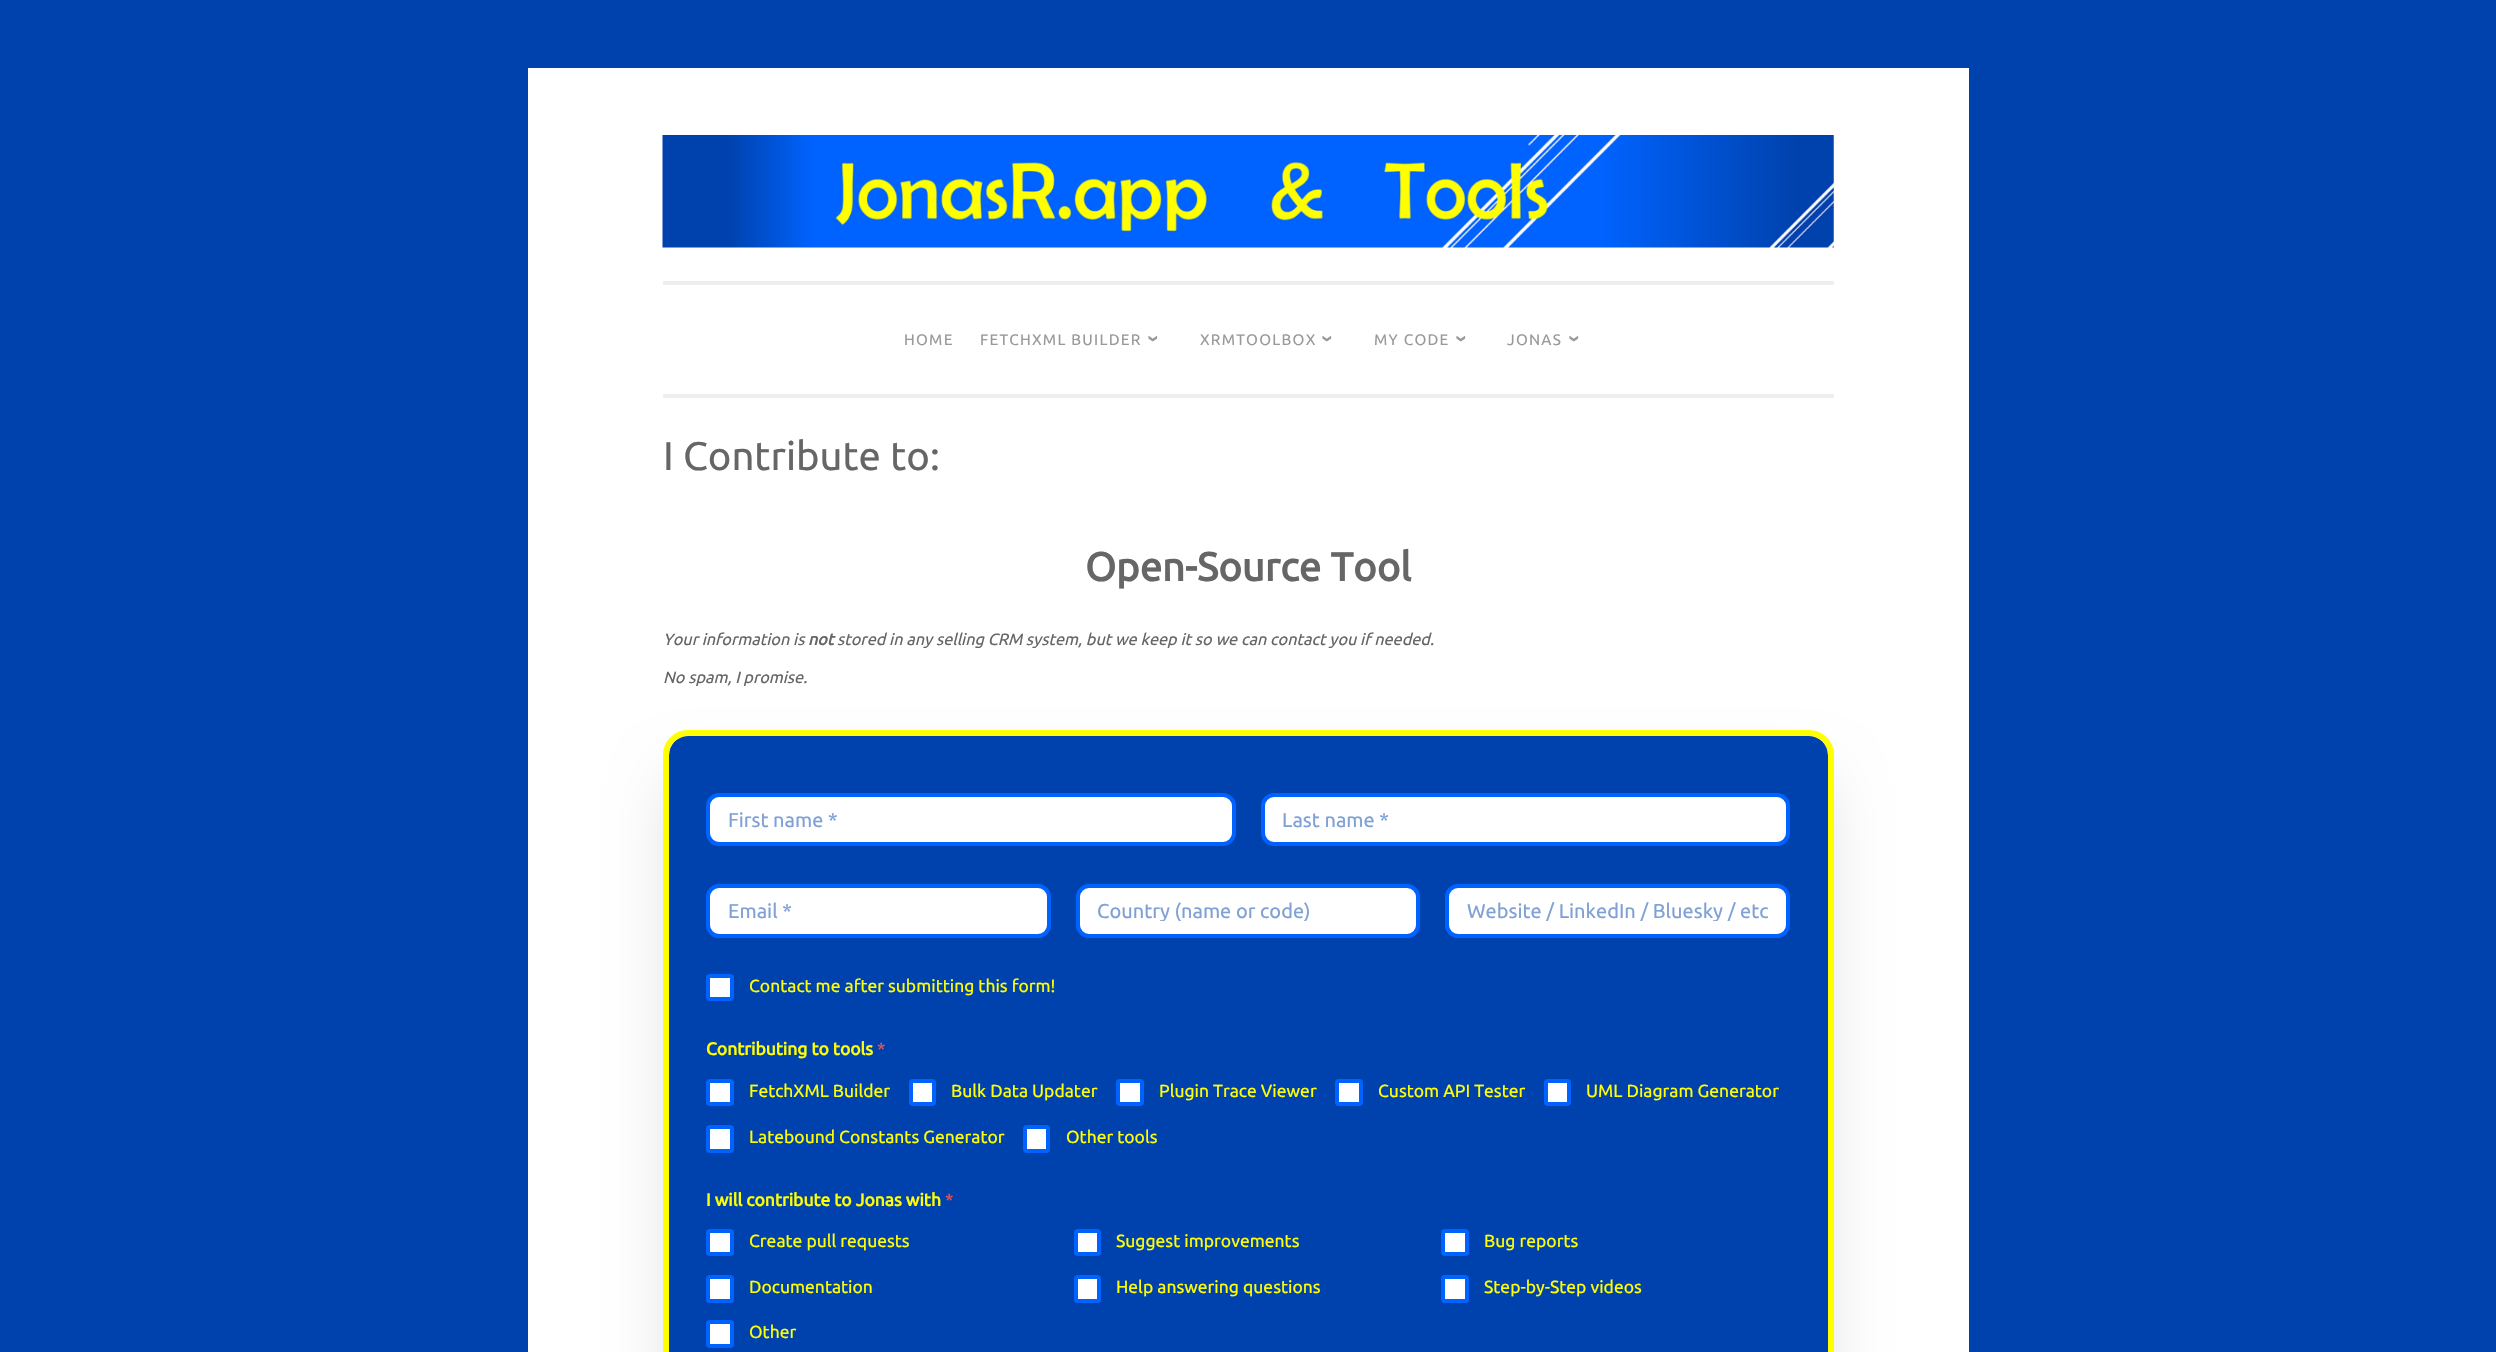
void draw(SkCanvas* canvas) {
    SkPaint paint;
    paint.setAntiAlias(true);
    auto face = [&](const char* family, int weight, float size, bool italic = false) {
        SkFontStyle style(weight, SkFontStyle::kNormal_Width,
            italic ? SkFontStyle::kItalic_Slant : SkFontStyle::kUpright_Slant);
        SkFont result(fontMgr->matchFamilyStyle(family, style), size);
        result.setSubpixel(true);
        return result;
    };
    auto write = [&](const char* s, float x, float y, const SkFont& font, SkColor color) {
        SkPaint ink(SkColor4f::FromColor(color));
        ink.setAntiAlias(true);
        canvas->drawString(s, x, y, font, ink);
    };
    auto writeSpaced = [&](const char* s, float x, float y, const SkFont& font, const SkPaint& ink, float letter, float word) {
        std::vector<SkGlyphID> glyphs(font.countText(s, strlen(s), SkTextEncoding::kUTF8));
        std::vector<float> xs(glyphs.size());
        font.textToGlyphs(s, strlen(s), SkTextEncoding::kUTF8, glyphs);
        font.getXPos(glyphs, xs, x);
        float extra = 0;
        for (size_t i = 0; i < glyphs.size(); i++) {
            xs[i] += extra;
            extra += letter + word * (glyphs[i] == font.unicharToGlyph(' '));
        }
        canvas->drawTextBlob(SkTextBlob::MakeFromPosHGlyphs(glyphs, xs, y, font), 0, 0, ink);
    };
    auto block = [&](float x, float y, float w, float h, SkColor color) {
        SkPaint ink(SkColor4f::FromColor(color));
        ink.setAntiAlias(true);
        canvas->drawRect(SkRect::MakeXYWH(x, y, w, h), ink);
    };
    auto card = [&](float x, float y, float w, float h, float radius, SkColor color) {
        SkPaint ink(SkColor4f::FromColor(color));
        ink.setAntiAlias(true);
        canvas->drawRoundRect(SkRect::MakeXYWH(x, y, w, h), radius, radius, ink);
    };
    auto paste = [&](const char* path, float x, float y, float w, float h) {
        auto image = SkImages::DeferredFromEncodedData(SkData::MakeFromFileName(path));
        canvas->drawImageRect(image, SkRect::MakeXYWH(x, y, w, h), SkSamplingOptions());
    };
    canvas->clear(SkColorSetRGB(0, 66, 173));
    block(528, 68, 1441, 1284, SK_ColorWHITE);
    block(663, 394, 1171, 4, SkColorSetRGB(238, 238, 238));
    paste("pic1.png", 662, 135, 1172, 113);
    block(663, 281, 1171, 4, SkColorSetRGB(238, 238, 238));
    auto kFont1 = face("Ubuntu", 400, 15.25f);
    paint.setColor(SkColorSetRGB(153, 153, 153));
    writeSpaced("HOME", 904, 345, kFont1, paint, 1.25f, 0);
    writeSpaced("FETCHXML BUILDER", 980, 345, kFont1, paint, 1.25f, 0);
    auto kFont2 = face("Liberation Sans", 700, 22);
    canvas->save();
    canvas->rotate(90, 1147, 335);
    writeSpaced("›", 1147, 335, kFont2, paint, 1.25f, 0);
    canvas->restore();
    writeSpaced("XRMTOOLBOX", 1200, 345, kFont1, paint, 1.25f, 0);
    canvas->save();
    canvas->rotate(90, 1321, 335);
    writeSpaced("›", 1321, 335, kFont2, paint, 1.25f, 0);
    canvas->restore();
    writeSpaced("MY CODE", 1374, 345, kFont1, paint, 1.25f, 0);
    canvas->save();
    canvas->rotate(90, 1455, 335);
    writeSpaced("›", 1455, 335, kFont2, paint, 1.25f, 0);
    canvas->restore();
    writeSpaced("JONAS", 1507, 345, kFont1, paint, 1.25f, 0);
    canvas->save();
    canvas->rotate(90, 1568, 335);
    writeSpaced("›", 1568, 335, kFont2, paint, 1.25f, 0);
    canvas->restore();
    auto kFont3 = face("Ubuntu", 400, 40);
    write("I Contribute to:", 663, 470, kFont3, SkColorSetRGB(102, 102, 102));
    auto kFont4 = face("Ubuntu", 700, 40);
    write("Open-Source Tool", 1085, 581, kFont4, SkColorSetRGB(102, 102, 102));
    auto kFont5 = face("Ubuntu", 400, 16.25f, true);
    write("Your information is", 663, 645, kFont5, SkColorSetRGB(102, 102, 102));
    auto kFont6 = face("Ubuntu", 700, 16.25f, true);
    write("not", 808, 645, kFont6, SkColorSetRGB(102, 102, 102));
    write("stored in any selling CRM system, but we keep it so we can contact you if needed.", 837, 645, kFont5, SkColorSetRGB(102, 102, 102));
    write("No spam, I promise.", 663, 683, kFont5, SkColorSetRGB(102, 102, 102));
    paint.setColor(SkColorSetARGB(38, 0, 0, 0));
    paint.setMaskFilter(SkMaskFilter::MakeBlur(kNormal_SkBlurStyle, 31));
    canvas->drawRoundRect(SkRect::MakeXYWH(675, 780, 1146, 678), 13, 13, paint);
    paint.setMaskFilter(nullptr);
    card(669, 736, 1159, 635, 19, SkColorSetRGB(0, 66, 173));
    paint.setStyle(SkPaint::kStroke_Style);
    paint.setStrokeWidth(6);
    paint.setColor(SkColorSetRGB(255, 255, 0));
    canvas->drawRoundRect(SkRect::MakeXYWH(666, 733, 1165, 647), 22, 22, paint);
    paint.setStyle(SkPaint::kFill_Style);
    paint.setColor(SK_ColorWHITE);
    canvas->drawRoundRect(SkRect::MakeXYWH(708, 795, 526, 49), 11, 11, paint);
    paint.setStyle(SkPaint::kStroke_Style);
    paint.setStrokeWidth(4);
    paint.setColor(SkColorSetRGB(0, 99, 255));
    canvas->drawRoundRect(SkRect::MakeXYWH(708, 795, 526, 49), 11, 11, paint);
    auto kFont7 = face("Ubuntu", 400, 20);
    write("First name *", 728, 827, kFont7, SkColorSetRGB(128, 161, 214));
    paint.setStyle(SkPaint::kFill_Style);
    paint.setColor(SK_ColorWHITE);
    canvas->drawRoundRect(SkRect::MakeXYWH(1263, 795, 525, 49), 11, 11, paint);
    paint.setStyle(SkPaint::kStroke_Style);
    paint.setColor(SkColorSetRGB(0, 99, 255));
    canvas->drawRoundRect(SkRect::MakeXYWH(1263, 795, 525, 49), 11, 11, paint);
    write("Last name *", 1282, 827, kFont7, SkColorSetRGB(128, 161, 214));
    paint.setStyle(SkPaint::kFill_Style);
    paint.setColor(SK_ColorWHITE);
    canvas->drawRoundRect(SkRect::MakeXYWH(708, 886, 341, 50), 11, 11, paint);
    paint.setStyle(SkPaint::kStroke_Style);
    paint.setColor(SkColorSetRGB(0, 99, 255));
    canvas->drawRoundRect(SkRect::MakeXYWH(708, 886, 341, 50), 11, 11, paint);
    write("Email *", 728, 918, kFont7, SkColorSetRGB(128, 161, 214));
    paint.setStyle(SkPaint::kFill_Style);
    paint.setColor(SK_ColorWHITE);
    canvas->drawRoundRect(SkRect::MakeXYWH(1078, 886, 340, 50), 11, 11, paint);
    paint.setStyle(SkPaint::kStroke_Style);
    paint.setColor(SkColorSetRGB(0, 99, 255));
    canvas->drawRoundRect(SkRect::MakeXYWH(1078, 886, 340, 50), 11, 11, paint);
    canvas->save();
    canvas->clipRect(SkRect::MakeXYWH(1098, 899, 301, 22));
    write("Country (name or code)", 1097, 918, kFont7, SkColorSetRGB(128, 161, 214));
    canvas->restore();
    paint.setStyle(SkPaint::kFill_Style);
    paint.setColor(SK_ColorWHITE);
    canvas->drawRoundRect(SkRect::MakeXYWH(1447, 886, 341, 50), 11, 11, paint);
    paint.setStyle(SkPaint::kStroke_Style);
    paint.setColor(SkColorSetRGB(0, 99, 255));
    canvas->drawRoundRect(SkRect::MakeXYWH(1447, 886, 341, 50), 11, 11, paint);
    canvas->save();
    canvas->clipRect(SkRect::MakeXYWH(1466, 899, 303, 22));
    write("Website / LinkedIn / Bluesky / etc", 1467, 918, kFont7, SkColorSetRGB(128, 161, 214));
    canvas->restore();
    paint.setStyle(SkPaint::kFill_Style);
    paint.setColor(SK_ColorWHITE);
    canvas->drawRoundRect(SkRect::MakeXYWH(708, 976, 24, 23), 2, 2, paint);
    paint.setStyle(SkPaint::kStroke_Style);
    paint.setColor(SkColorSetRGB(0, 99, 255));
    canvas->drawRoundRect(SkRect::MakeXYWH(708, 976, 24, 23), 2, 2, paint);
    auto kFont8 = face("Ubuntu", 400, 17.5f);
    write("Contact me after submitting this form!", 749, 992, kFont8, SkColorSetRGB(255, 255, 0));
    auto kFont9 = face("Ubuntu", 700, 17.5f);
    write("Contributing to tools", 706, 1055, kFont9, SkColorSetRGB(255, 255, 0));
    write("*", 877, 1055, kFont8, SkColorSetRGB(235, 82, 82));
    paint.setStyle(SkPaint::kFill_Style);
    paint.setColor(SK_ColorWHITE);
    canvas->drawRoundRect(SkRect::MakeXYWH(708, 1081, 24, 23), 2, 2, paint);
    paint.setStyle(SkPaint::kStroke_Style);
    paint.setColor(SkColorSetRGB(0, 99, 255));
    canvas->drawRoundRect(SkRect::MakeXYWH(708, 1081, 24, 23), 2, 2, paint);
    write("FetchXML Builder", 749, 1097, kFont8, SkColorSetRGB(255, 255, 0));
    paint.setStyle(SkPaint::kFill_Style);
    paint.setColor(SK_ColorWHITE);
    canvas->drawRoundRect(SkRect::MakeXYWH(911, 1081, 23, 23), 2, 2, paint);
    paint.setStyle(SkPaint::kStroke_Style);
    paint.setColor(SkColorSetRGB(0, 99, 255));
    canvas->drawRoundRect(SkRect::MakeXYWH(911, 1081, 23, 23), 2, 2, paint);
    write("Bulk Data Updater", 951, 1097, kFont8, SkColorSetRGB(255, 255, 0));
    paint.setStyle(SkPaint::kFill_Style);
    paint.setColor(SK_ColorWHITE);
    canvas->drawRoundRect(SkRect::MakeXYWH(1118, 1081, 24, 23), 2, 2, paint);
    paint.setStyle(SkPaint::kStroke_Style);
    paint.setColor(SkColorSetRGB(0, 99, 255));
    canvas->drawRoundRect(SkRect::MakeXYWH(1118, 1081, 24, 23), 2, 2, paint);
    write("Plugin Trace Viewer", 1159, 1097, kFont8, SkColorSetRGB(255, 255, 0));
    paint.setStyle(SkPaint::kFill_Style);
    paint.setColor(SK_ColorWHITE);
    canvas->drawRoundRect(SkRect::MakeXYWH(1337, 1081, 24, 23), 2, 2, paint);
    paint.setStyle(SkPaint::kStroke_Style);
    paint.setColor(SkColorSetRGB(0, 99, 255));
    canvas->drawRoundRect(SkRect::MakeXYWH(1337, 1081, 24, 23), 2, 2, paint);
    write("Custom API Tester", 1378, 1097, kFont8, SkColorSetRGB(255, 255, 0));
    paint.setStyle(SkPaint::kFill_Style);
    paint.setColor(SK_ColorWHITE);
    canvas->drawRoundRect(SkRect::MakeXYWH(1546, 1081, 23, 23), 2, 2, paint);
    paint.setStyle(SkPaint::kStroke_Style);
    paint.setColor(SkColorSetRGB(0, 99, 255));
    canvas->drawRoundRect(SkRect::MakeXYWH(1546, 1081, 23, 23), 2, 2, paint);
    write("UML Diagram Generator", 1586, 1097, kFont8, SkColorSetRGB(255, 255, 0));
    paint.setStyle(SkPaint::kFill_Style);
    paint.setColor(SK_ColorWHITE);
    canvas->drawRoundRect(SkRect::MakeXYWH(708, 1127, 24, 24), 2, 2, paint);
    paint.setStyle(SkPaint::kStroke_Style);
    paint.setColor(SkColorSetRGB(0, 99, 255));
    canvas->drawRoundRect(SkRect::MakeXYWH(708, 1127, 24, 24), 2, 2, paint);
    write("Latebound Constants Generator", 749, 1143, kFont8, SkColorSetRGB(255, 255, 0));
    paint.setStyle(SkPaint::kFill_Style);
    paint.setColor(SK_ColorWHITE);
    canvas->drawRoundRect(SkRect::MakeXYWH(1025, 1127, 23, 24), 2, 2, paint);
    paint.setStyle(SkPaint::kStroke_Style);
    paint.setColor(SkColorSetRGB(0, 99, 255));
    canvas->drawRoundRect(SkRect::MakeXYWH(1025, 1127, 23, 24), 2, 2, paint);
    write("Other tools", 1066, 1143, kFont8, SkColorSetRGB(255, 255, 0));
    write("I will contribute to Jonas with", 706, 1206, kFont9, SkColorSetRGB(255, 255, 0));
    write("*", 945, 1206, kFont8, SkColorSetRGB(235, 82, 82));
    paint.setStyle(SkPaint::kFill_Style);
    paint.setColor(SK_ColorWHITE);
    canvas->drawRoundRect(SkRect::MakeXYWH(708, 1231, 24, 23), 2, 2, paint);
    paint.setStyle(SkPaint::kStroke_Style);
    paint.setColor(SkColorSetRGB(0, 99, 255));
    canvas->drawRoundRect(SkRect::MakeXYWH(708, 1231, 24, 23), 2, 2, paint);
    write("Create pull requests", 749, 1247, kFont8, SkColorSetRGB(255, 255, 0));
    paint.setStyle(SkPaint::kFill_Style);
    paint.setColor(SK_ColorWHITE);
    canvas->drawRoundRect(SkRect::MakeXYWH(1076, 1231, 23, 23), 2, 2, paint);
    paint.setStyle(SkPaint::kStroke_Style);
    paint.setColor(SkColorSetRGB(0, 99, 255));
    canvas->drawRoundRect(SkRect::MakeXYWH(1076, 1231, 23, 23), 2, 2, paint);
    write("Suggest improvements", 1116, 1247, kFont8, SkColorSetRGB(255, 255, 0));
    paint.setStyle(SkPaint::kFill_Style);
    paint.setColor(SK_ColorWHITE);
    canvas->drawRoundRect(SkRect::MakeXYWH(1443, 1231, 24, 23), 2, 2, paint);
    paint.setStyle(SkPaint::kStroke_Style);
    paint.setColor(SkColorSetRGB(0, 99, 255));
    canvas->drawRoundRect(SkRect::MakeXYWH(1443, 1231, 24, 23), 2, 2, paint);
    write("Bug reports", 1484, 1247, kFont8, SkColorSetRGB(255, 255, 0));
    paint.setStyle(SkPaint::kFill_Style);
    paint.setColor(SK_ColorWHITE);
    canvas->drawRoundRect(SkRect::MakeXYWH(708, 1277, 24, 24), 2, 2, paint);
    paint.setStyle(SkPaint::kStroke_Style);
    paint.setColor(SkColorSetRGB(0, 99, 255));
    canvas->drawRoundRect(SkRect::MakeXYWH(708, 1277, 24, 24), 2, 2, paint);
    write("Documentation", 749, 1293, kFont8, SkColorSetRGB(255, 255, 0));
    paint.setStyle(SkPaint::kFill_Style);
    paint.setColor(SK_ColorWHITE);
    canvas->drawRoundRect(SkRect::MakeXYWH(1076, 1277, 23, 24), 2, 2, paint);
    paint.setStyle(SkPaint::kStroke_Style);
    paint.setColor(SkColorSetRGB(0, 99, 255));
    canvas->drawRoundRect(SkRect::MakeXYWH(1076, 1277, 23, 24), 2, 2, paint);
    write("Help answering questions", 1116, 1293, kFont8, SkColorSetRGB(255, 255, 0));
    paint.setStyle(SkPaint::kFill_Style);
    paint.setColor(SK_ColorWHITE);
    canvas->drawRoundRect(SkRect::MakeXYWH(1443, 1277, 24, 24), 2, 2, paint);
    paint.setStyle(SkPaint::kStroke_Style);
    paint.setColor(SkColorSetRGB(0, 99, 255));
    canvas->drawRoundRect(SkRect::MakeXYWH(1443, 1277, 24, 24), 2, 2, paint);
    write("Step-by-Step videos", 1484, 1293, kFont8, SkColorSetRGB(255, 255, 0));
    paint.setStyle(SkPaint::kFill_Style);
    paint.setColor(SK_ColorWHITE);
    canvas->drawRoundRect(SkRect::MakeXYWH(708, 1322, 24, 24), 2, 2, paint);
    paint.setStyle(SkPaint::kStroke_Style);
    paint.setColor(SkColorSetRGB(0, 99, 255));
    canvas->drawRoundRect(SkRect::MakeXYWH(708, 1322, 24, 24), 2, 2, paint);
    write("Other", 749, 1338, kFont8, SkColorSetRGB(255, 255, 0));
}
